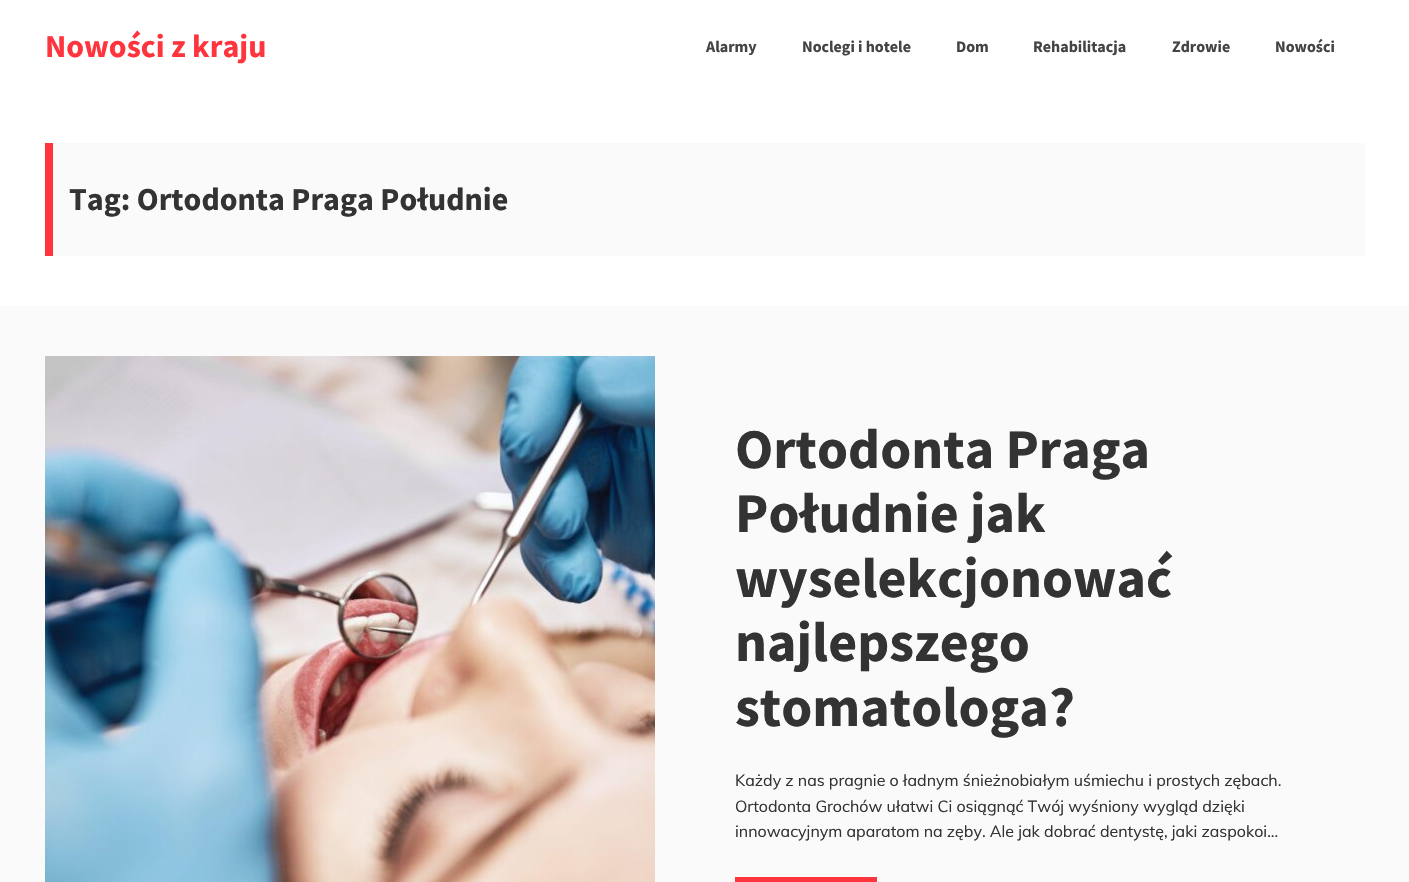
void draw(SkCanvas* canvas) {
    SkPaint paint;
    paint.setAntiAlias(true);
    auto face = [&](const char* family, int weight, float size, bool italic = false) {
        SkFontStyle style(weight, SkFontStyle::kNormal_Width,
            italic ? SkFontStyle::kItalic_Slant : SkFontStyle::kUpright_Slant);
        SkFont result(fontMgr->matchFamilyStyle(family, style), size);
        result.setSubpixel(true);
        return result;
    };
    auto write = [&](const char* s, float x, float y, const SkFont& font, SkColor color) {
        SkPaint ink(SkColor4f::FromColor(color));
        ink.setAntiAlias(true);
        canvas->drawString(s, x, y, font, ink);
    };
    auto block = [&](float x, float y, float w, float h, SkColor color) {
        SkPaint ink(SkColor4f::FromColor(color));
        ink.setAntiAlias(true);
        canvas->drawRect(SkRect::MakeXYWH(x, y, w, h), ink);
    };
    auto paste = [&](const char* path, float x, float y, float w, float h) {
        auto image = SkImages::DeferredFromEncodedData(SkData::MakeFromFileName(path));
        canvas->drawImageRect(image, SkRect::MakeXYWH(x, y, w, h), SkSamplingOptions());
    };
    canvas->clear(SK_ColorWHITE);
    auto kFont1 = face("Source Sans Pro", 700, 32);
    write("Nowości z kraju", 45, 57, kFont1, SkColorSetRGB(255, 53, 62));
    auto kFont2 = face("Source Sans Pro", 700, 16);
    write("Alarmy", 706, 52, kFont2, SkColorSetRGB(68, 68, 68));
    write("Noclegi i hotele", 802, 52, kFont2, SkColorSetRGB(68, 68, 68));
    write("Dom", 956, 52, kFont2, SkColorSetRGB(68, 68, 68));
    write("Rehabilitacja", 1033, 52, kFont2, SkColorSetRGB(68, 68, 68));
    write("Zdrowie", 1172, 52, kFont2, SkColorSetRGB(68, 68, 68));
    write("Nowości", 1275, 52, kFont2, SkColorSetRGB(68, 68, 68));
    block(53, 143, 1312, 113, SkColorSetRGB(250, 250, 250));
    block(45, 143, 8, 113, SkColorSetRGB(255, 53, 62));
    write("Tag: Ortodonta Praga Południe", 69, 210, kFont1, SkColorSetRGB(51, 51, 51));
    block(0, 306, 1409, 576, SkColorSetRGB(250, 250, 250));
    paste("pic1.png", 45, 356, 610, 526);
    auto kFont3 = face("Source Sans Pro", 700, 56);
    write("Ortodonta Praga", 735, 468, kFont3, SkColorSetRGB(51, 51, 51));
    write("Południe jak", 735, 532, kFont3, SkColorSetRGB(51, 51, 51));
    write("wyselekcjonować", 735, 597, kFont3, SkColorSetRGB(51, 51, 51));
    write("najlepszego", 735, 661, kFont3, SkColorSetRGB(51, 51, 51));
    write("stomatologa?", 735, 726, kFont3, SkColorSetRGB(51, 51, 51));
    auto kFont4 = face("Muli", 400, 16);
    write("Każdy z nas pragnie o ładnym śnieżnobiałym uśmiechu i prostych zębach.", 735, 786, kFont4, SkColorSetRGB(51, 51, 51));
    write("Ortodonta Grochów ułatwi Ci osiągnąć Twój wyśniony wygląd dzięki", 735, 812, kFont4, SkColorSetRGB(51, 51, 51));
    write("innowacyjnym aparatom na zęby. Ale jak dobrać dentystę, jaki zaspokoi...", 735, 837, kFont4, SkColorSetRGB(51, 51, 51));
    block(735, 877, 142, 5, SkColorSetRGB(255, 53, 62));
}
